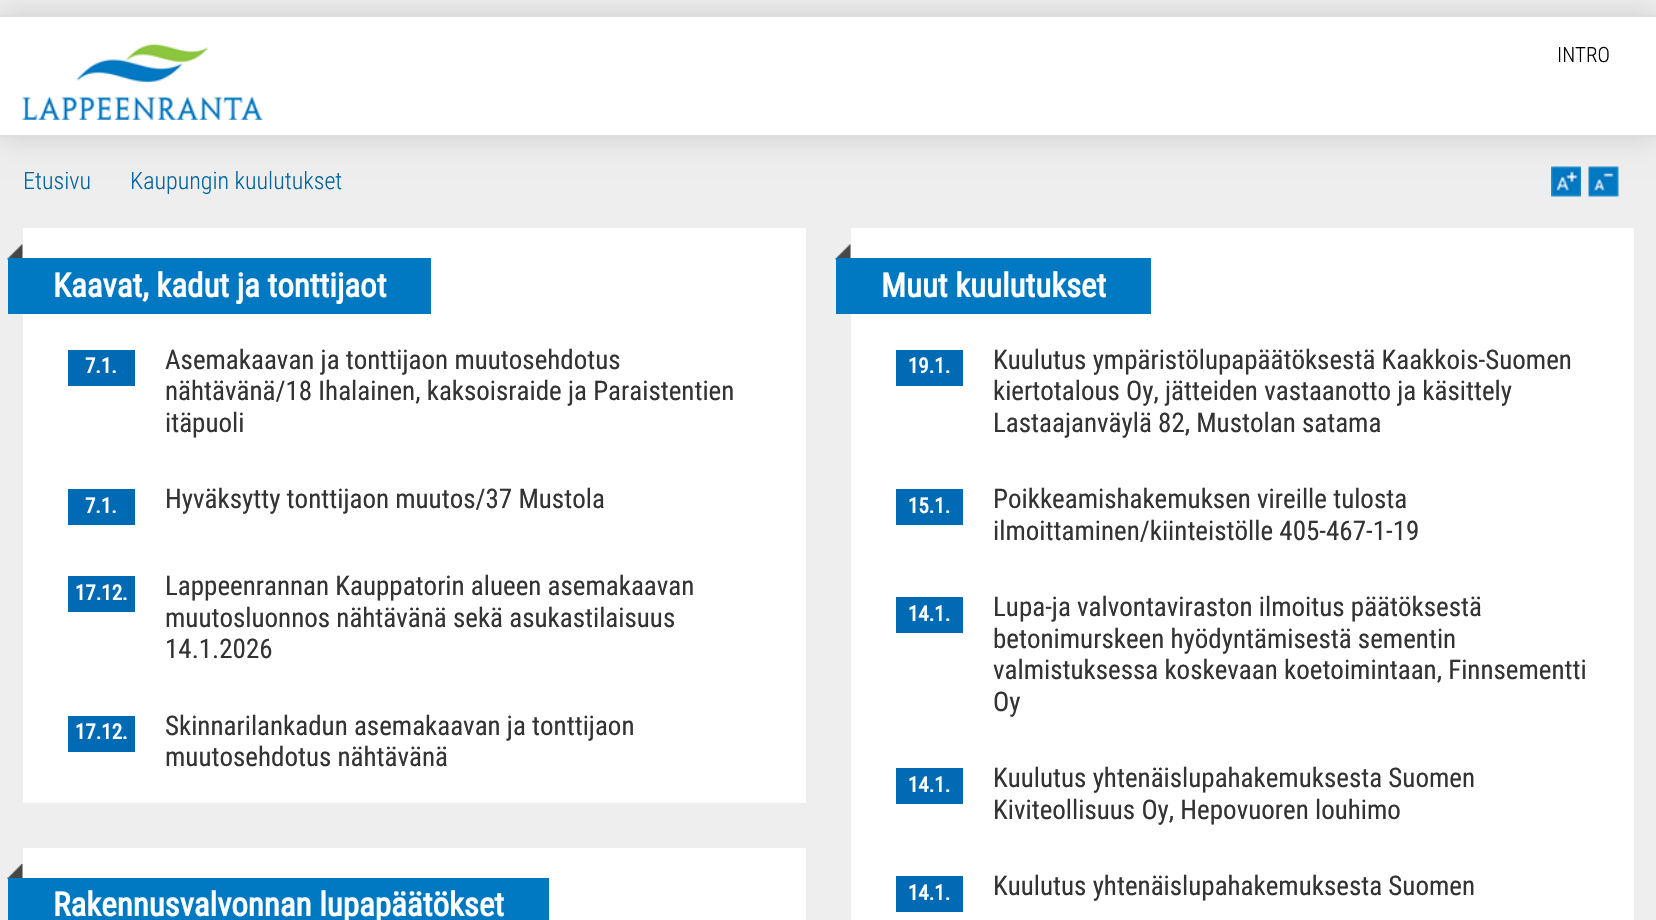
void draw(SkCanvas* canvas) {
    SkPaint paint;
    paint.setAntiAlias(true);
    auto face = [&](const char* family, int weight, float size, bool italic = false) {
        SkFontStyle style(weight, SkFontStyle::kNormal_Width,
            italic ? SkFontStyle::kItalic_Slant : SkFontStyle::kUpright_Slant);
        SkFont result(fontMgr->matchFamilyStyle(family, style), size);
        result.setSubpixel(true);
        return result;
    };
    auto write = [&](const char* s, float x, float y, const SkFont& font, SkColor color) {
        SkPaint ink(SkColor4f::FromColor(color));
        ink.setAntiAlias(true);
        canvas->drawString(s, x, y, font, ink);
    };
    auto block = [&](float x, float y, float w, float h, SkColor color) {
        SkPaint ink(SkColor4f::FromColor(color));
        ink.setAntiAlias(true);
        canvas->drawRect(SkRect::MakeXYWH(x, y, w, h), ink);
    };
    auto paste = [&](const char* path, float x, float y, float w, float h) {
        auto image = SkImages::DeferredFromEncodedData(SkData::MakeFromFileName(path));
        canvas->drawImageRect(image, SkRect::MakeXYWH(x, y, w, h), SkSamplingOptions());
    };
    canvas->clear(SkColorSetRGB(238, 238, 238));
    paint.setColor(SkColorSetRGB(204, 204, 204));
    paint.setMaskFilter(SkMaskFilter::MakeBlur(kNormal_SkBlurStyle, 15));
    canvas->drawRect(SkRect::MakeXYWH(0, 15, 1656, 122), paint);
    paint.setMaskFilter(nullptr);
    block(0, 17, 1656, 118, SK_ColorWHITE);
    block(0, 15, 1656, 2, SkColorSetRGB(221, 221, 221));
    block(0, 135, 1656, 2, SkColorSetRGB(221, 221, 221));
    paste("pic1.png", 22, 43, 241, 77);
    auto kFont1 = face("Roboto Condensed", 300, 21);
    write("INTRO", 1557, 62, kFont1, SK_ColorBLACK);
    auto kFont2 = face("Roboto Condensed", 300, 24);
    write("Etusivu", 23, 189, kFont2, SkColorSetRGB(0, 100, 161));
    write("Kaupungin kuulutukset", 130, 189, kFont2, SkColorSetRGB(0, 100, 161));
    paste("pic2.png", 1551, 166, 30, 31);
    paste("pic3.png", 1588, 166, 31, 31);
    block(23, 228, 783, 575, SK_ColorWHITE);
    paste("pic4.png", 7, 244, 16, 16);
    block(8, 258, 423, 56, SkColorSetRGB(0, 121, 194));
    auto kFont3 = face("Roboto Condensed", 700, 33);
    write("Kaavat, kadut ja tonttijaot", 53, 297, kFont3, SK_ColorWHITE);
    block(68, 350, 67, 36, SkColorSetRGB(0, 106, 180));
    auto kFont4 = face("Roboto Condensed", 700, 21);
    write("7.1.", 85, 373, kFont4, SK_ColorWHITE);
    auto kFont5 = face("Roboto Condensed", 400, 27);
    write("Asemakaavan ja tonttijaon muutosehdotus", 165, 369, kFont5, SkColorSetRGB(51, 51, 51));
    write("nähtävänä/18 Ihalainen, kaksoisraide ja Paraistentien", 165, 400, kFont5, SkColorSetRGB(51, 51, 51));
    write("itäpuoli", 165, 432, kFont5, SkColorSetRGB(51, 51, 51));
    block(68, 489, 67, 36, SkColorSetRGB(0, 106, 180));
    write("7.1.", 85, 513, kFont4, SK_ColorWHITE);
    write("Hyväksytty tonttijaon muutos/37 Mustola", 165, 508, kFont5, SkColorSetRGB(51, 51, 51));
    block(68, 576, 67, 36, SkColorSetRGB(0, 106, 180));
    write("17.12.", 75, 600, kFont4, SK_ColorWHITE);
    write("Lappeenrannan Kauppatorin alueen asemakaavan", 165, 595, kFont5, SkColorSetRGB(51, 51, 51));
    write("muutosluonnos nähtävänä sekä asukastilaisuus", 165, 627, kFont5, SkColorSetRGB(51, 51, 51));
    write("14.1.2026", 165, 658, kFont5, SkColorSetRGB(51, 51, 51));
    block(68, 716, 67, 36, SkColorSetRGB(0, 106, 180));
    write("17.12.", 75, 739, kFont4, SK_ColorWHITE);
    write("Skinnarilankadun asemakaavan ja tonttijaon", 165, 735, kFont5, SkColorSetRGB(51, 51, 51));
    write("muutosehdotus nähtävänä", 165, 766, kFont5, SkColorSetRGB(51, 51, 51));
    block(23, 848, 783, 72, SK_ColorWHITE);
    paste("pic5.png", 7, 864, 16, 15);
    block(8, 878, 541, 42, SkColorSetRGB(0, 121, 194));
    write("Rakennusvalvonnan lupapäätökset", 53, 916, kFont3, SK_ColorWHITE);
    block(851, 228, 783, 692, SK_ColorWHITE);
    paste("pic4.png", 835, 244, 16, 16);
    block(836, 258, 315, 56, SkColorSetRGB(0, 121, 194));
    write("Muut kuulutukset", 881, 297, kFont3, SK_ColorWHITE);
    block(896, 350, 67, 36, SkColorSetRGB(0, 106, 180));
    write("19.1.", 908, 373, kFont4, SK_ColorWHITE);
    write("Kuulutus ympäristölupapäätöksestä Kaakkois-Suomen", 993, 369, kFont5, SkColorSetRGB(51, 51, 51));
    write("kiertotalous Oy, jätteiden vastaanotto ja käsittely", 993, 400, kFont5, SkColorSetRGB(51, 51, 51));
    write("Lastaajanväylä 82, Mustolan satama", 993, 432, kFont5, SkColorSetRGB(51, 51, 51));
    block(896, 489, 67, 36, SkColorSetRGB(0, 106, 180));
    write("15.1.", 908, 513, kFont4, SK_ColorWHITE);
    write("Poikkeamishakemuksen vireille tulosta", 993, 508, kFont5, SkColorSetRGB(51, 51, 51));
    write("ilmoittaminen/kiinteistölle 405-467-1-19", 993, 540, kFont5, SkColorSetRGB(51, 51, 51));
    block(896, 597, 67, 36, SkColorSetRGB(0, 106, 180));
    write("14.1.", 908, 621, kFont4, SK_ColorWHITE);
    write("Lupa-ja valvontaviraston ilmoitus päätöksestä", 993, 616, kFont5, SkColorSetRGB(51, 51, 51));
    write("betonimurskeen hyödyntämisestä sementin", 993, 648, kFont5, SkColorSetRGB(51, 51, 51));
    write("valmistuksessa koskevaan koetoimintaan, Finnsementti", 993, 679, kFont5, SkColorSetRGB(51, 51, 51));
    write("Oy", 993, 711, kFont5, SkColorSetRGB(51, 51, 51));
    block(896, 768, 67, 36, SkColorSetRGB(0, 106, 180));
    write("14.1.", 908, 792, kFont4, SK_ColorWHITE);
    write("Kuulutus yhtenäislupahakemuksesta Suomen", 993, 787, kFont5, SkColorSetRGB(51, 51, 51));
    write("Kiviteollisuus Oy, Hepovuoren louhimo", 993, 819, kFont5, SkColorSetRGB(51, 51, 51));
    block(896, 876, 67, 36, SkColorSetRGB(0, 106, 180));
    write("14.1.", 908, 900, kFont4, SK_ColorWHITE);
    write("Kuulutus yhtenäislupahakemuksesta Suomen", 993, 895, kFont5, SkColorSetRGB(51, 51, 51));
}
